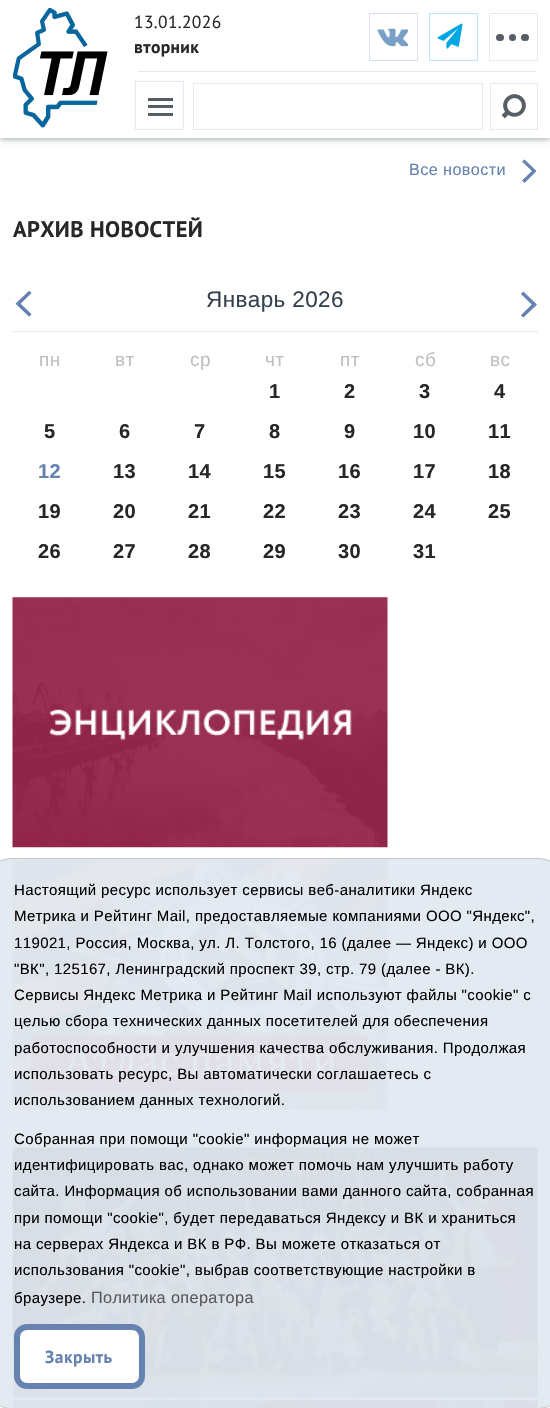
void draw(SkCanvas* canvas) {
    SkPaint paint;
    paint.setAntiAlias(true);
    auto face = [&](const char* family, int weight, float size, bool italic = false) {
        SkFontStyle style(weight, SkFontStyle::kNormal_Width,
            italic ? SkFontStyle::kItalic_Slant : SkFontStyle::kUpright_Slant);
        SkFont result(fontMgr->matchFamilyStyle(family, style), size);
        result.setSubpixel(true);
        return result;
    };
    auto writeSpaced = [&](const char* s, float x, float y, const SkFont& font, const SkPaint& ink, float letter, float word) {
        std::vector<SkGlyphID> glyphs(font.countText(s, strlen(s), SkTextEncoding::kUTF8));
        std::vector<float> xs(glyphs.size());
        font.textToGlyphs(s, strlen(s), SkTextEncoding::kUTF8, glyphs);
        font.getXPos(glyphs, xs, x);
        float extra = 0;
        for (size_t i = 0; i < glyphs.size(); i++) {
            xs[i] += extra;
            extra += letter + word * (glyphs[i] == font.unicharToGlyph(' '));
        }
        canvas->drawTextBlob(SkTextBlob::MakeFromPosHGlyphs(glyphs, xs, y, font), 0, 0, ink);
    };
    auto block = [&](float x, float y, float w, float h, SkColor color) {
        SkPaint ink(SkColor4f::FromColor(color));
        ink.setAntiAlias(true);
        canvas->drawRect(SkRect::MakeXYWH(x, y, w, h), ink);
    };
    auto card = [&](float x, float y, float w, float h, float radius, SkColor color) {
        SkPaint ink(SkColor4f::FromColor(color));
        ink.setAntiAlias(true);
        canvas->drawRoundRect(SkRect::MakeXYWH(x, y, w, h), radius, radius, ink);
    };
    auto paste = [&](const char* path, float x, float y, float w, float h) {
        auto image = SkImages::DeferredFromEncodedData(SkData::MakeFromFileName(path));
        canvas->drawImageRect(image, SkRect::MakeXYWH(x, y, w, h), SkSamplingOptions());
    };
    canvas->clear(SK_ColorWHITE);
    block(13, 1148, 525, 250, SkColorSetRGB(128, 128, 128));
    paint.setColor(SkColorSetRGB(158, 166, 168));
    paint.setMaskFilter(SkMaskFilter::MakeBlur(kNormal_SkBlurStyle, 3));
    canvas->drawRect(SkRect::MakeXYWH(0, 1, 550, 138), paint);
    paint.setMaskFilter(nullptr);
    block(0, 0, 550, 138, SK_ColorWHITE);
    paste("pic1.png", 13, 8, 95, 120);
    auto kFont1 = face("PT Sans", 400, 17.5f);
    paint.setColor(SkColorSetRGB(39, 39, 39));
    writeSpaced("13.01.2026", 134, 28, kFont1, paint, 0.38f, 0);
    auto kFont2 = face("PT Sans", 700, 17.5f);
    writeSpaced("вторник", 134, 53, kFont2, paint, 0.38f, 0);
    paint.setStyle(SkPaint::kStroke_Style);
    paint.setStrokeWidth(1);
    paint.setColor(SkColorSetRGB(214, 226, 238));
    canvas->drawRect(SkRect::MakeXYWH(369.5f, 13.5f, 48, 47), paint);
    paste("pic2.png", 377, 28, 32, 19);
    paint.setColor(SkColorSetRGB(191, 228, 246));
    canvas->drawRect(SkRect::MakeXYWH(429.5f, 13.5f, 48, 47), paint);
    paste("pic3.png", 437, 23, 26, 26);
    paint.setColor(SkColorSetRGB(227, 233, 241));
    canvas->drawRect(SkRect::MakeXYWH(489.5f, 13.5f, 48, 47), paint);
    paint.setStyle(SkPaint::kFill_Style);
    paint.setColor(SkColorSetRGB(88, 94, 101));
    canvas->drawCircle(512.5f, 37.5f, 3.5f, paint);
    card(496, 34, 8, 7, 3.5f, SkColorSetRGB(88, 94, 101));
    card(521, 34, 8, 7, 3.5f, SkColorSetRGB(88, 94, 101));
    paint.setStyle(SkPaint::kStroke_Style);
    paint.setColor(SkColorSetRGB(227, 233, 241));
    canvas->drawRect(SkRect::MakeXYWH(193.5f, 83.5f, 289, 46), paint);
    canvas->drawRect(SkRect::MakeXYWH(490.5f, 83.5f, 47, 46), paint);
    paste("pic4.png", 501, 94, 25, 25);
    block(138, 71, 398, 1, SkColorSetRGB(227, 233, 241));
    canvas->drawRect(SkRect::MakeXYWH(135.5f, 81.5f, 48, 48), paint);
    block(148, 105, 25, 3, SkColorSetRGB(85, 94, 101));
    block(148, 98, 25, 3, SkColorSetRGB(85, 94, 101));
    block(148, 113, 25, 3, SkColorSetRGB(85, 94, 101));
    paint.setStyle(SkPaint::kFill_Style);
    paint.setColor(SkColorSetRGB(101, 130, 176));
    canvas->drawPath(SkPathBuilder().moveTo(524.5f, 159.5f).lineTo(522, 161.5f).lineTo(532, 171).lineTo(522, 180.5f).lineTo(524.5f, 183).lineTo(536.5f, 171).close().detach(), paint);
    auto kFont3 = face("Liberation Sans", 400, 16.25f);
    writeSpaced("Все новости", 409, 175, kFont3, paint, 0.38f, 0);
    auto kFont4 = face("PT Sans", 700, 22.5f);
    paint.setColor(SkColorSetRGB(39, 39, 39));
    writeSpaced("АРХИВ НОВОСТЕЙ", 13, 237, kFont4, paint, 0.38f, 0);
    paste("pic5.png", 15, 290, 17, 27);
    auto kFont5 = face("Liberation Sans", 400, 22.5f);
    paint.setColor(SkColorSetRGB(53, 65, 78));
    writeSpaced("Январь 2026", 206, 307, kFont5, paint, 0.38f, 0);
    block(13, 331, 525, 1, SkColorSetRGB(227, 233, 241));
    paste("pic6.png", 521, 291, 16, 27);
    auto kFont6 = face("Liberation Sans", 400, 19);
    paint.setColor(SkColorSetRGB(191, 191, 191));
    writeSpaced("пн", 39, 366, kFont6, paint, 0.38f, 0);
    writeSpaced("вт", 115, 366, kFont6, paint, 0.38f, 0);
    writeSpaced("ср", 190, 366, kFont6, paint, 0.38f, 0);
    writeSpaced("чт", 265, 366, kFont6, paint, 0.38f, 0);
    writeSpaced("пт", 340, 366, kFont6, paint, 0.38f, 0);
    writeSpaced("сб", 415, 366, kFont6, paint, 0.38f, 0);
    writeSpaced("вс", 490, 366, kFont6, paint, 0.38f, 0);
    auto kFont7 = face("Liberation Sans", 700, 20);
    paint.setColor(SkColorSetRGB(39, 39, 39));
    writeSpaced("1", 269, 398, kFont7, paint, 0.38f, 0);
    writeSpaced("2", 344, 398, kFont7, paint, 0.38f, 0);
    writeSpaced("3", 419, 398, kFont7, paint, 0.38f, 0);
    writeSpaced("4", 494, 398, kFont7, paint, 0.38f, 0);
    writeSpaced("5", 44, 438, kFont7, paint, 0.38f, 0);
    writeSpaced("6", 119, 438, kFont7, paint, 0.38f, 0);
    writeSpaced("7", 194, 438, kFont7, paint, 0.38f, 0);
    writeSpaced("8", 269, 438, kFont7, paint, 0.38f, 0);
    writeSpaced("9", 344, 438, kFont7, paint, 0.38f, 0);
    writeSpaced("10", 413, 438, kFont7, paint, 0.38f, 0);
    writeSpaced("11", 488, 438, kFont7, paint, 0.38f, 0);
    paint.setColor(SkColorSetRGB(101, 130, 176));
    writeSpaced("12", 38, 478, kFont7, paint, 0.38f, 0);
    paint.setColor(SkColorSetRGB(39, 39, 39));
    writeSpaced("13", 113, 478, kFont7, paint, 0.38f, 0);
    writeSpaced("14", 188, 478, kFont7, paint, 0.38f, 0);
    writeSpaced("15", 263, 478, kFont7, paint, 0.38f, 0);
    writeSpaced("16", 338, 478, kFont7, paint, 0.38f, 0);
    writeSpaced("17", 413, 478, kFont7, paint, 0.38f, 0);
    writeSpaced("18", 488, 478, kFont7, paint, 0.38f, 0);
    writeSpaced("19", 38, 518, kFont7, paint, 0.38f, 0);
    writeSpaced("20", 113, 518, kFont7, paint, 0.38f, 0);
    writeSpaced("21", 188, 518, kFont7, paint, 0.38f, 0);
    writeSpaced("22", 263, 518, kFont7, paint, 0.38f, 0);
    writeSpaced("23", 338, 518, kFont7, paint, 0.38f, 0);
    writeSpaced("24", 413, 518, kFont7, paint, 0.38f, 0);
    writeSpaced("25", 488, 518, kFont7, paint, 0.38f, 0);
    writeSpaced("26", 38, 558, kFont7, paint, 0.38f, 0);
    writeSpaced("27", 113, 558, kFont7, paint, 0.38f, 0);
    writeSpaced("28", 188, 558, kFont7, paint, 0.38f, 0);
    writeSpaced("29", 263, 558, kFont7, paint, 0.38f, 0);
    writeSpaced("30", 338, 558, kFont7, paint, 0.38f, 0);
    writeSpaced("31", 413, 558, kFont7, paint, 0.38f, 0);
    paste("pic7.png", 12, 597, 376, 251);
    paste("pic8.png", 12, 859, 376, 251);
    paste("pic9.png", 12, 1147, 526, 251);
    paste("pic10.png", 12, 1399, 526, 9);
    block(13, 1400, 525, 8, SkColorSetARGB(128, 0, 0, 0));
    paint.setColor(SkColorSetARGB(242, 227, 233, 241));
    canvas->drawRoundRect(SkRect::MakeXYWH(-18.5f, 858.5f, 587, 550), 30.5f, 30.5f, paint);
    paint.setStyle(SkPaint::kStroke_Style);
    paint.setColor(SkColorSetRGB(198, 198, 198));
    canvas->drawRoundRect(SkRect::MakeXYWH(-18.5f, 858.5f, 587, 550), 30.5f, 30.5f, paint);
    auto kFont8 = face("Liberation Sans", 400, 15);
    paint.setStyle(SkPaint::kFill_Style);
    paint.setColor(SK_ColorBLACK);
    writeSpaced("Настоящий ресурс использует сервисы веб-аналитики Яндекс", 14, 895, kFont8, paint, 0.38f, 0);
    writeSpaced("Метрика и Рейтинг Mail, предоставляемые компаниями ООО \"Яндекс\",", 14, 921, kFont8, paint, 0.38f, 0);
    writeSpaced("119021, Россия, Москва, ул. Л. Толстого, 16 (далее — Яндекс) и ООО", 14, 948, kFont8, paint, 0.38f, 0);
    writeSpaced("\"ВК\", 125167, Ленинградский проспект 39, стр. 79 (далее - ВК).", 14, 974, kFont8, paint, 0.38f, 0);
    writeSpaced("Сервисы Яндекс Метрика и Рейтинг Mail используют файлы \"cookie\" с", 14, 1000, kFont8, paint, 0.38f, 0);
    writeSpaced("целью сбора технических данных посетителей для обеспечения", 14, 1026, kFont8, paint, 0.38f, 0);
    writeSpaced("работоспособности и улучшения качества обслуживания. Продолжая", 14, 1053, kFont8, paint, 0.38f, 0);
    writeSpaced("использовать ресурс, Вы автоматически соглашаетесь с", 14, 1079, kFont8, paint, 0.38f, 0);
    writeSpaced("использованием данных технологий.", 14, 1105, kFont8, paint, 0.38f, 0);
    writeSpaced("Собранная при помощи \"cookie\" информация не может", 14, 1144, kFont8, paint, 0.38f, 0);
    writeSpaced("идентифицировать вас, однако может помочь нам улучшить работу", 14, 1170, kFont8, paint, 0.38f, 0);
    writeSpaced("сайта. Информация об использовании вами данного сайта, собранная", 14, 1196, kFont8, paint, 0.38f, 0);
    writeSpaced("при помощи \"cookie\", будет передаваться Яндексу и ВК и храниться", 14, 1223, kFont8, paint, 0.38f, 0);
    writeSpaced("на серверах Яндекса и ВК в РФ. Вы можете отказаться от", 14, 1249, kFont8, paint, 0.38f, 0);
    writeSpaced("использования \"cookie\", выбрав соответствующие настройки в", 14, 1275, kFont8, paint, 0.38f, 0);
    writeSpaced("браузере.", 14, 1303, kFont8, paint, 0.38f, 0);
    paint.setColor(SkColorSetRGB(88, 89, 91));
    writeSpaced("Политика оператора", 91, 1303, kFont3, paint, 0.38f, 0);
    paint.setColor(SK_ColorWHITE);
    canvas->drawRoundRect(SkRect::MakeXYWH(17, 1327, 125, 59), 10, 10, paint);
    paint.setStyle(SkPaint::kStroke_Style);
    paint.setStrokeWidth(6);
    paint.setColor(SkColorSetRGB(101, 130, 176));
    canvas->drawRoundRect(SkRect::MakeXYWH(17, 1327, 125, 59), 10, 10, paint);
    paint.setStyle(SkPaint::kFill_Style);
    writeSpaced("Закрыть", 45, 1363, kFont2, paint, 0.5f, 0);
}
